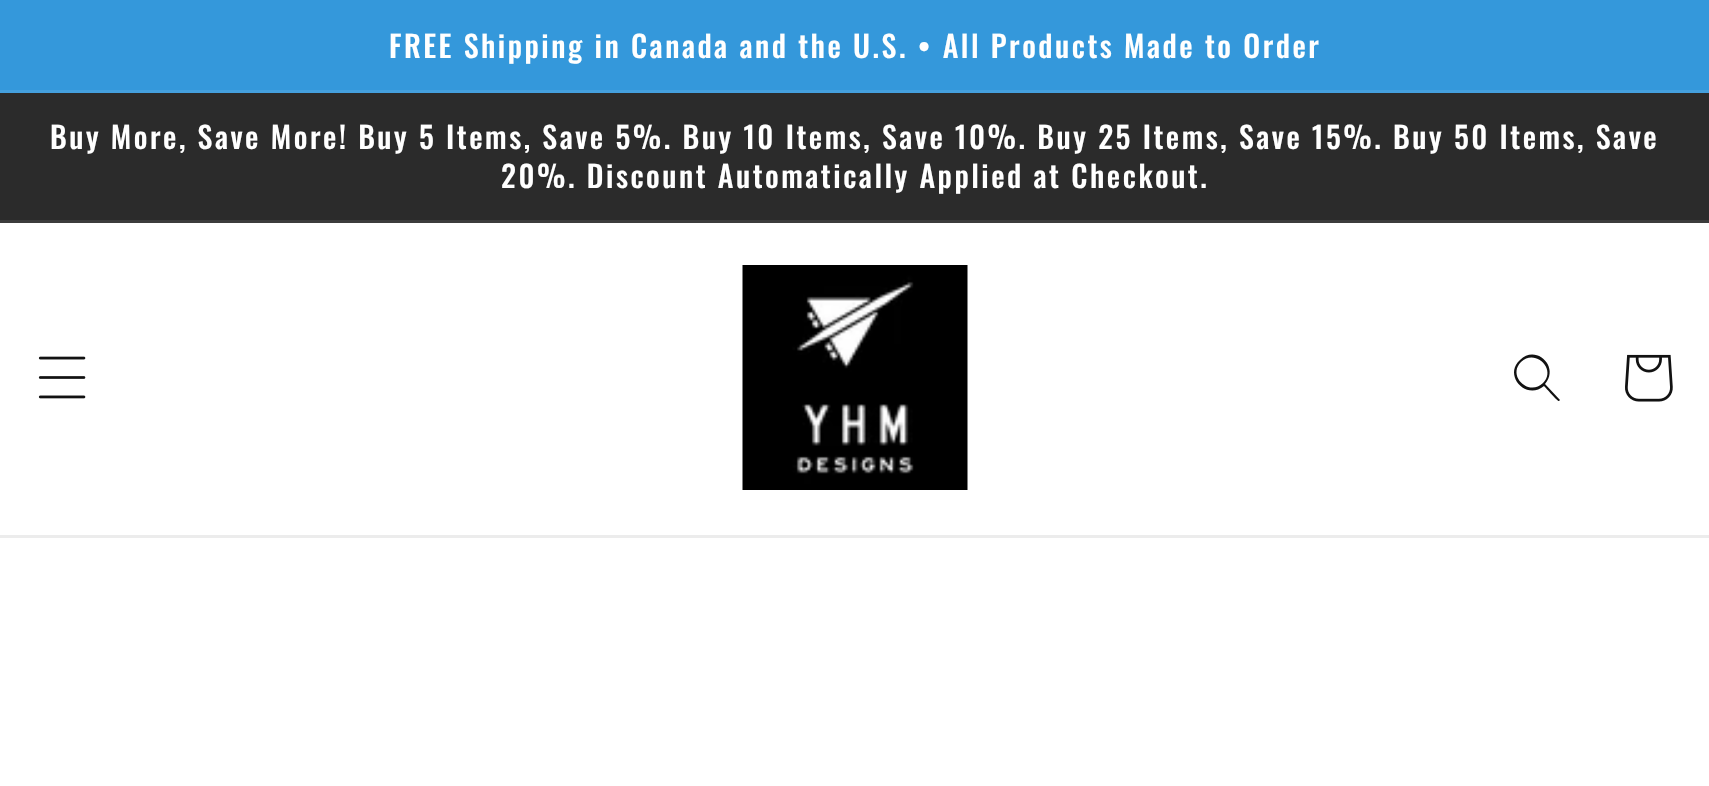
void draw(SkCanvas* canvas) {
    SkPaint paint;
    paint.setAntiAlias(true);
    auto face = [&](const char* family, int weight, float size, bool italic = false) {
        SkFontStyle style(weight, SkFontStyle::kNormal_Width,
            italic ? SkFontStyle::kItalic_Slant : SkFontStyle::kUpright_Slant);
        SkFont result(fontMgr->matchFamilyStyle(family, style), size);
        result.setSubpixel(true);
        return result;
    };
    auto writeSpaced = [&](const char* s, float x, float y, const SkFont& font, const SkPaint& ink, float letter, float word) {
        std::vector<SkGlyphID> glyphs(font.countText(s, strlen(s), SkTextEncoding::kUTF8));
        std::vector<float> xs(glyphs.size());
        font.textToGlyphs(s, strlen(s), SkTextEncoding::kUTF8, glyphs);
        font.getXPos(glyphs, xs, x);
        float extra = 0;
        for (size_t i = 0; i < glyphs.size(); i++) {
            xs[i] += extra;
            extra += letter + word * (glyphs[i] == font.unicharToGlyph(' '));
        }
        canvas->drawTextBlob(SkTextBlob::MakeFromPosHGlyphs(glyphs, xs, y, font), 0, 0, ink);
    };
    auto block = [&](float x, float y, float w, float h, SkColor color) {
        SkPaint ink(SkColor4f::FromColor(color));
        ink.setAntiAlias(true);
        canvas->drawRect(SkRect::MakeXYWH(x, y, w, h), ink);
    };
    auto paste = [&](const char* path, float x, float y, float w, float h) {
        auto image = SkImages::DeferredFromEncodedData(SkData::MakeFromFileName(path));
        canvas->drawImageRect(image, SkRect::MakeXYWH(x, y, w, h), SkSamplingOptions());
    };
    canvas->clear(SK_ColorWHITE);
    block(0, 0, 1709, 90, SkColorSetRGB(52, 152, 219));
    block(0, 90, 1709, 3, SkColorSetRGB(68, 160, 222));
    auto kFont1 = face("Oswald", 500, 30);
    paint.setColor(SK_ColorWHITE);
    writeSpaced("FREE Shipping in Canada and the U.S. • All Products Made to Order", 389, 58, kFont1, paint, 2.5f, 0);
    block(0, 93, 1709, 127, SkColorSetRGB(43, 43, 43));
    block(0, 220, 1709, 3, SkColorSetRGB(60, 60, 60));
    writeSpaced("Buy More, Save More! Buy 5 Items, Save 5%. Buy 10 Items, Save 10%. Buy 25 Items, Save 15%. Buy 50 Items, Save", 50, 149, kFont1, paint, 2.5f, 0);
    writeSpaced("20%. Discount Automatically Applied at Checkout.", 501, 188, kFont1, paint, 2.5f, 0);
    block(0, 535, 1709, 3, SkColorSetRGB(236, 236, 236));
    paste("pic1.png", 38, 356, 48, 43);
    paste("pic2.png", 742, 265, 226, 225);
    paint.setColor(SkColorSetRGB(18, 18, 18));
    canvas->drawPath(SkPathBuilder(SkPathFillType::kEvenOdd).moveTo(1543, 383).cubicTo(1529, 397, 1507, 376, 1521, 362).cubicTo(1535, 348, 1557, 369, 1543, 383).close().moveTo(1544, 386).cubicTo(1526, 401, 1503, 375, 1520, 360).cubicTo(1536, 344, 1560, 367, 1545, 384).lineTo(1560, 400).lineTo(1559, 401).cubicTo(1558, 402, 1546, 388, 1544, 386).close().detach(), paint);
    paste("pic3.png", 1625, 354, 48, 48);
}
